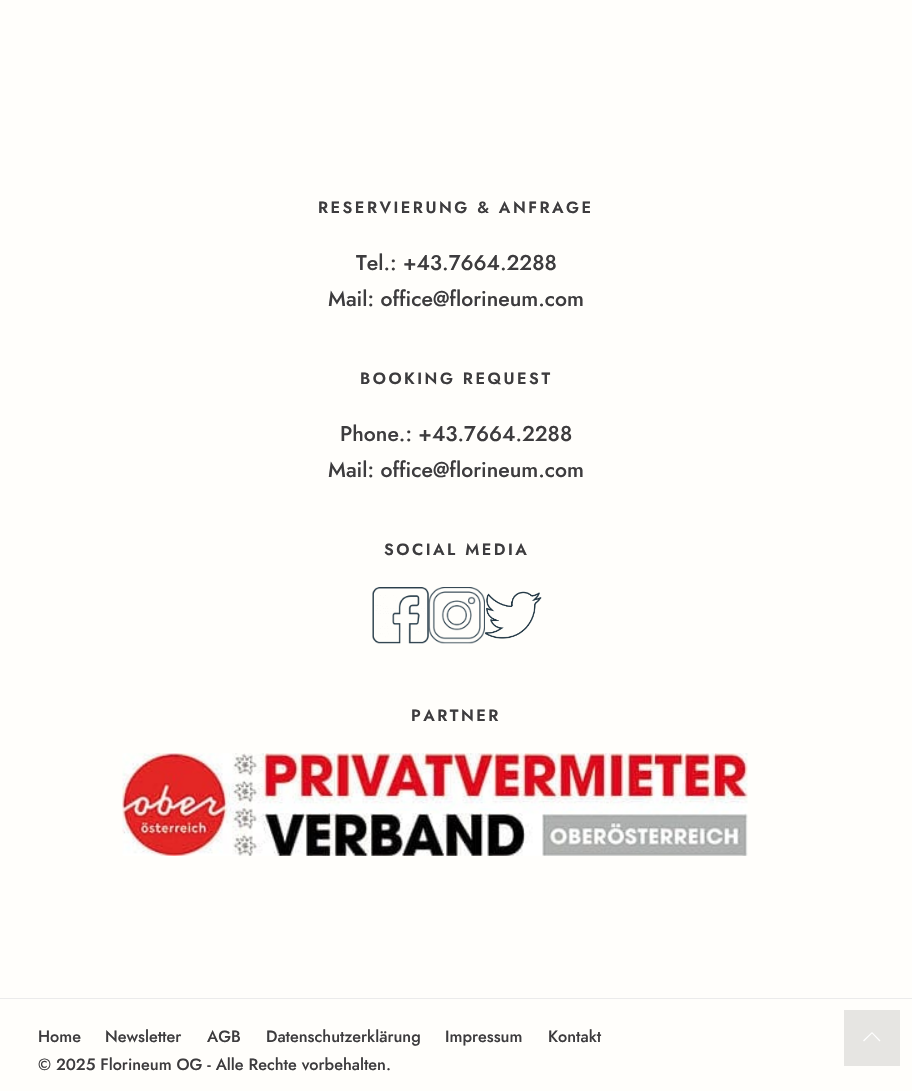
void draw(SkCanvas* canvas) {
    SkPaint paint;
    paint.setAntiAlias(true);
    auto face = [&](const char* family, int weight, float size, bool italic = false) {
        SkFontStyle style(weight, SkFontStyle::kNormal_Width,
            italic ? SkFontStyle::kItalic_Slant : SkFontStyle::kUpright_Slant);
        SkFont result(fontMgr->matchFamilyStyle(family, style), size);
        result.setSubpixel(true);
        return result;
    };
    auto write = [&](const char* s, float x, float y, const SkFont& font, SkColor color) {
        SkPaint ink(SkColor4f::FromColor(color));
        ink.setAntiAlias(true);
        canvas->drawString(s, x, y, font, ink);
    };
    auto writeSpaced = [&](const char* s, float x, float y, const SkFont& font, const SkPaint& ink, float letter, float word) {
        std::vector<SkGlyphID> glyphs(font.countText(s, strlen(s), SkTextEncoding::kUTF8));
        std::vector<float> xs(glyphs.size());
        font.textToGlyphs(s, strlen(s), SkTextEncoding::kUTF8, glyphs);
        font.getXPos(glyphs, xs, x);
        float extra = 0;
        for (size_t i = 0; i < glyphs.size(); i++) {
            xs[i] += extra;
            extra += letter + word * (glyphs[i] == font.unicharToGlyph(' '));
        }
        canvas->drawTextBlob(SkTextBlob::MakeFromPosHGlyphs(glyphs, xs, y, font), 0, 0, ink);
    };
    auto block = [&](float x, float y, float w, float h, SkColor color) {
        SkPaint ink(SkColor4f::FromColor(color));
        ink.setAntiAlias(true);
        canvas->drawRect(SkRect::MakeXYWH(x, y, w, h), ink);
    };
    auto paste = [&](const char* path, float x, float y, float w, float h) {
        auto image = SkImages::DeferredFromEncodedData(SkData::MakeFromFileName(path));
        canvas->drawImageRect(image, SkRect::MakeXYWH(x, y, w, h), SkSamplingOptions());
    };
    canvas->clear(SkColorSetRGB(255, 254, 251));
    auto kFont1 = face("Jost", 600, 16.25f);
    paint.setColor(SkColorSetRGB(61, 60, 62));
    writeSpaced("RESERVIERUNG & ANFRAGE", 318, 213, kFont1, paint, 2.5f, 0);
    auto kFont2 = face("Jost", 500, 21.25f);
    write("Tel.: +43.7664.2288", 356, 270, kFont2, SkColorSetRGB(61, 60, 62));
    write("Mail: office@florineum.com", 328, 306, kFont2, SkColorSetRGB(61, 60, 62));
    writeSpaced("BOOKING REQUEST", 360, 384, kFont1, paint, 2.5f, 0);
    write("Phone.: +43.7664.2288", 340, 441, kFont2, SkColorSetRGB(61, 60, 62));
    write("Mail: office@florineum.com", 328, 477, kFont2, SkColorSetRGB(61, 60, 62));
    writeSpaced("SOCIAL MEDIA", 384, 555, kFont1, paint, 2.5f, 0);
    paste("pic1.png", 372, 587, 57, 57);
    paste("pic2.png", 428, 587, 57, 57);
    paste("pic3.png", 485, 591, 57, 48);
    writeSpaced("PARTNER", 411, 721, kFont1, paint, 2.5f, 0);
    paste("pic4.png", 122, 753, 626, 103);
    block(0, 998, 912, 1, SkColorSetRGB(235, 235, 235));
    auto kFont3 = face("Jost", 500, 16.25f);
    write("Home", 38, 1042, kFont3, SkColorSetRGB(61, 60, 62));
    write("Newsletter", 105, 1042, kFont3, SkColorSetRGB(61, 60, 62));
    write("AGB", 207, 1042, kFont3, SkColorSetRGB(61, 60, 62));
    write("Datenschutzerklärung", 266, 1042, kFont3, SkColorSetRGB(61, 60, 62));
    write("Impressum", 445, 1042, kFont3, SkColorSetRGB(61, 60, 62));
    write("Kontakt", 548, 1042, kFont3, SkColorSetRGB(61, 60, 62));
    write("© 2025 Florineum OG - Alle Rechte vorbehalten.", 38, 1070, kFont3, SkColorSetRGB(61, 60, 62));
    block(844, 1010, 56, 56, SkColorSetRGB(230, 229, 226));
    paint.setColor(SK_ColorWHITE);
    canvas->drawPath(SkPathBuilder().moveTo(880.5f, 1040.5f).lineTo(879.5f, 1041.5f).lineTo(872, 1033.5f).lineTo(864, 1041.5f).lineTo(863, 1040.5f).lineTo(872, 1032).close().detach(), paint);
}
